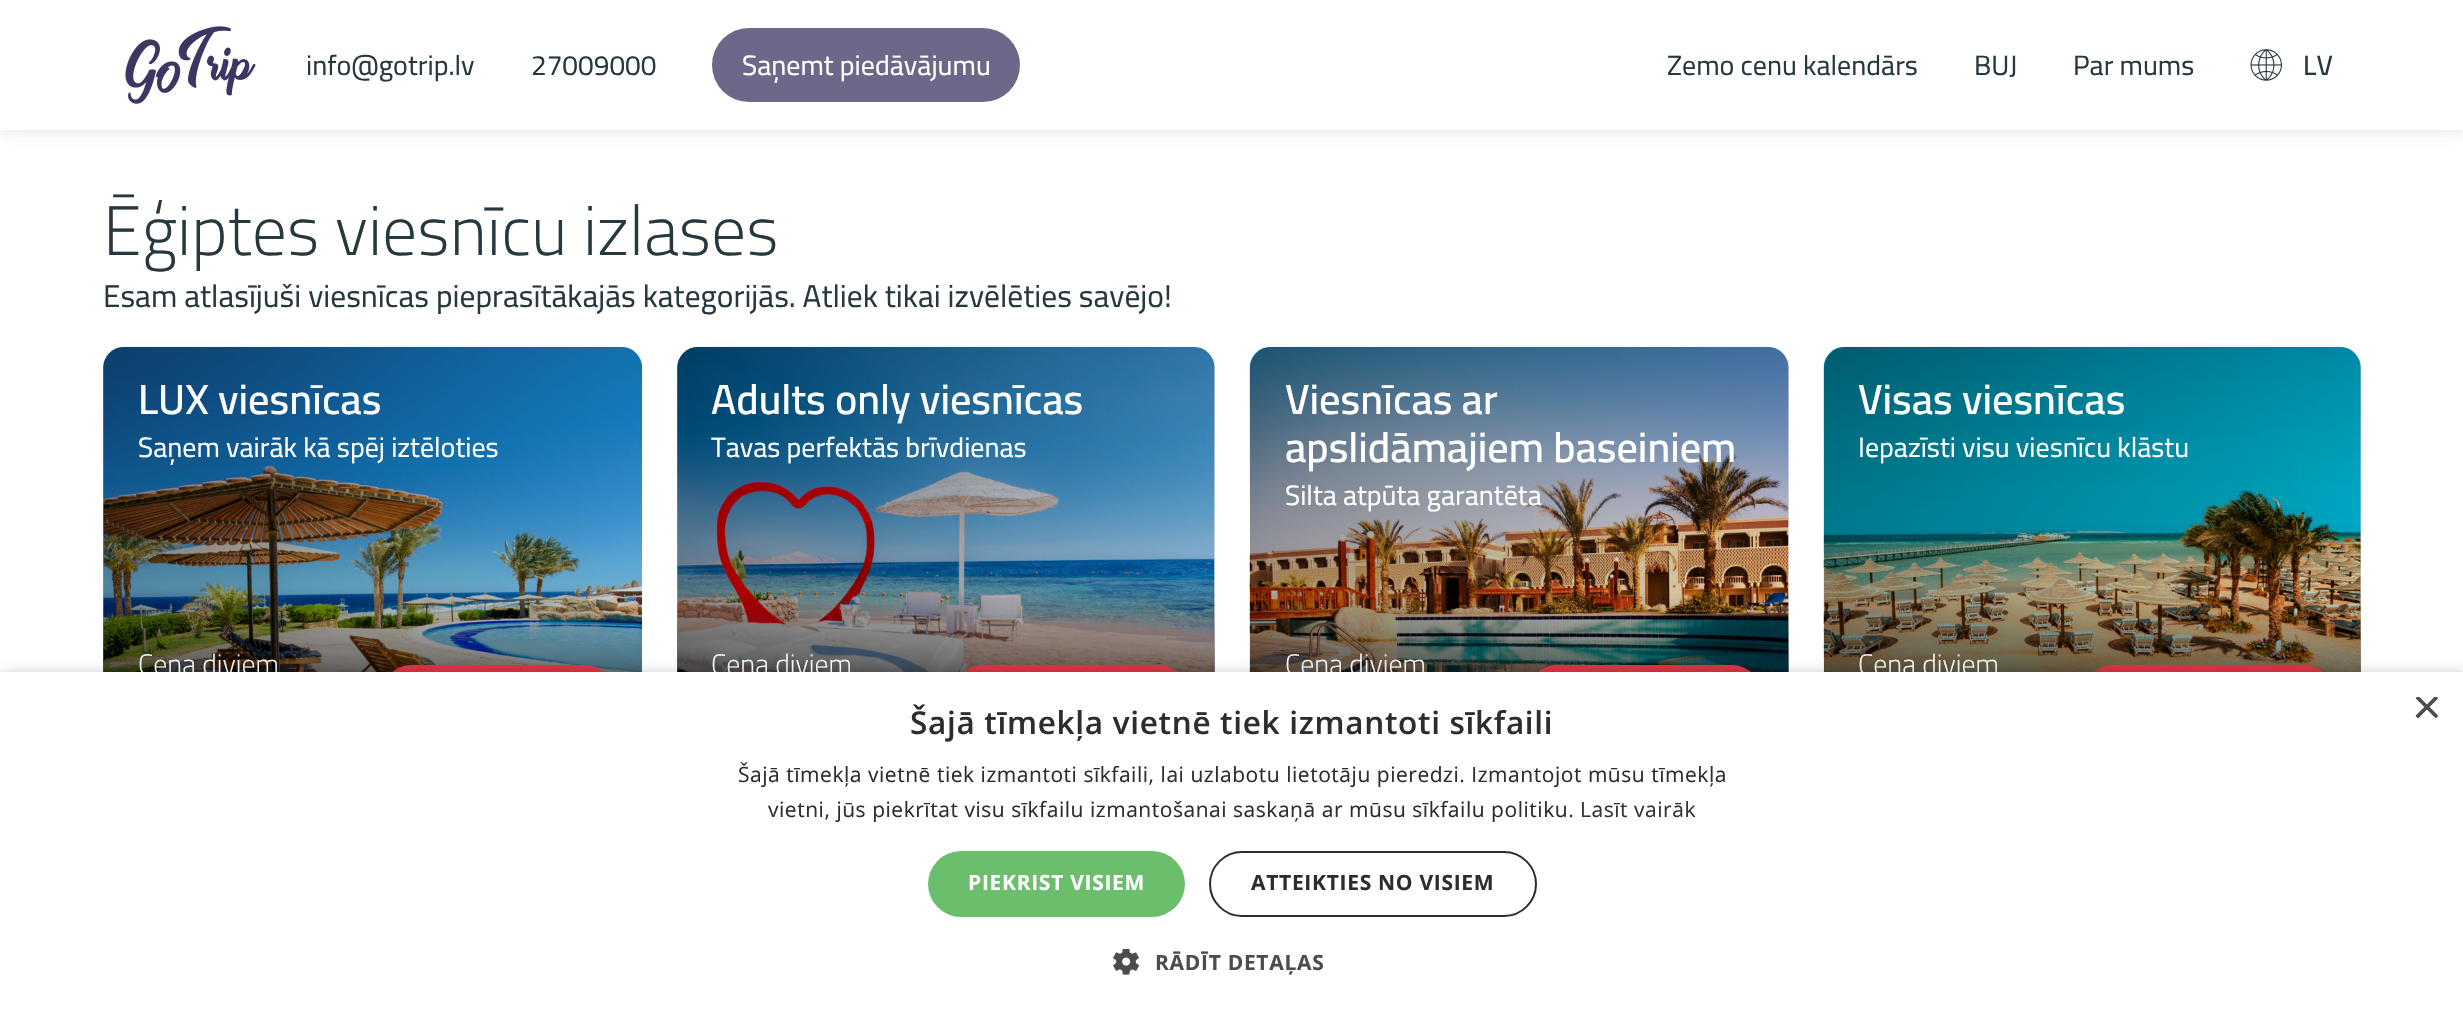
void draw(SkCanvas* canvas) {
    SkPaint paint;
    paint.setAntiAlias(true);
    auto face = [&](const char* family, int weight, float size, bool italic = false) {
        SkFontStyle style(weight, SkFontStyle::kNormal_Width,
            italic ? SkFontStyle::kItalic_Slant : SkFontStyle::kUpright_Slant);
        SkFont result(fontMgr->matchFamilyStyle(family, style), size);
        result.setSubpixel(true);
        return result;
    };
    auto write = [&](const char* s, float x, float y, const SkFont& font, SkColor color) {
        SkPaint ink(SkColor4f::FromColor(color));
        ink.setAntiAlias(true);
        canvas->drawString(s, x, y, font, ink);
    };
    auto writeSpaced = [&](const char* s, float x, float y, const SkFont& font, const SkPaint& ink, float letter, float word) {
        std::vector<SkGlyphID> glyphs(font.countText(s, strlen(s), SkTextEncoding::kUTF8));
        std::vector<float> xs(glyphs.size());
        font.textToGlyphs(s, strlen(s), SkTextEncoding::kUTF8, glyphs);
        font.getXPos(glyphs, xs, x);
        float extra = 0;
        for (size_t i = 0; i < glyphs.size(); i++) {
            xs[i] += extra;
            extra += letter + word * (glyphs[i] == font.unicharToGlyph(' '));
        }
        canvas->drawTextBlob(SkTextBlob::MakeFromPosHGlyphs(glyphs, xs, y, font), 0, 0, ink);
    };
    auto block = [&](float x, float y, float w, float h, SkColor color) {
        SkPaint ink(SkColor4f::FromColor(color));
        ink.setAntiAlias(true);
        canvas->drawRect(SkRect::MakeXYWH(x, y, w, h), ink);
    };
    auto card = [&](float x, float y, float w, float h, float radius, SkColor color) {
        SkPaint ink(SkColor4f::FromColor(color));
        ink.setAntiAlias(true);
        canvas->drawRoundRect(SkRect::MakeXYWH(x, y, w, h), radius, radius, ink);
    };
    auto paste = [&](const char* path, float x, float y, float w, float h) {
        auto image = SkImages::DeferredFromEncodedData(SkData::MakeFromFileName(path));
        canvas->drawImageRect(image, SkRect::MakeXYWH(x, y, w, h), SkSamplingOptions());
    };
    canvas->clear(SK_ColorWHITE);
    paint.setColor(SkColorSetARGB(38, 40, 56, 63));
    paint.setMaskFilter(SkMaskFilter::MakeBlur(kNormal_SkBlurStyle, 9));
    canvas->drawRect(SkRect::MakeXYWH(0, 0, 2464, 130), paint);
    paint.setMaskFilter(nullptr);
    block(0, 0, 2463, 130, SK_ColorWHITE);
    paste("pic1.png", 125, 26, 131, 78);
    auto kFont1 = face("Cairo", 400, 28);
    write("info@gotrip.lv", 306, 75, kFont1, SkColorSetRGB(40, 56, 63));
    write("27009000", 531, 75, kFont1, SkColorSetRGB(40, 56, 63));
    card(712, 28, 308, 74, 37, SkColorSetRGB(108, 104, 137));
    write("Saņemt piedāvājumu", 742, 75, kFont1, SK_ColorWHITE);
    write("Zemo cenu kalendārs", 1667, 75, kFont1, SkColorSetRGB(40, 56, 63));
    write("BUJ", 1974, 75, kFont1, SkColorSetRGB(40, 56, 63));
    write("Par mums", 2073, 75, kFont1, SkColorSetRGB(40, 56, 63));
    paste("pic2.png", 2250, 49, 32, 32);
    auto kFont2 = face("Cairo", 500, 28);
    write("LV", 2303, 75, kFont2, SkColorSetRGB(40, 56, 63));
    auto kFont3 = face("Cairo", 300, 70);
    write("Ēģiptes viesnīcu izlases", 103, 255, kFont3, SkColorSetRGB(40, 56, 63));
    auto kFont4 = face("Cairo", 400, 31.5f);
    write("Esam atlasījuši viesnīcas pieprasītākajās kategorijās. Atliek tikai izvēlēties savējo!", 103, 307, kFont4, SkColorSetRGB(40, 56, 63));
    paste("pic3.png", 103, 346, 540, 326);
    {
        const SkColor colors[] = {SkColorSetARGB(128, 0, 0, 0), SkColorSetARGB(0, 0, 0, 0)};
        const float stops[] = {0, 1};
        const SkPoint ends[] = {{179, 290}, {567, 807}};
        paint.setShader(SkGradientShader::MakeLinear(ends, colors, stops, 2, SkTileMode::kClamp));
        paint.setAlpha(255);
    }
    canvas->drawRoundRect(SkRect::MakeXYWH(103, 347, 539, 404), 21, 21, paint);
    auto kFont5 = face("Cairo", 600, 42);
    write("LUX viesnīcas", 138, 414, kFont5, SK_ColorWHITE);
    write("Saņem vairāk kā spēj iztēloties", 138, 457, kFont1, SK_ColorWHITE);
    {
        const SkColor colors[] = {SkColorSetARGB(0, 0, 0, 0), SkColorSetARGB(128, 0, 0, 0), SkColorSetARGB(128, 0, 0, 0)};
        const float stops[] = {0, 0.5f, 1};
        const SkPoint ends[] = {{373, 590}, {373, 751}};
        paint.setShader(SkGradientShader::MakeLinear(ends, colors, stops, 3, SkTileMode::kClamp));
        paint.setAlpha(255);
    }
    canvas->drawRect(SkRect::MakeXYWH(103, 593, 539, 79), paint);
    auto kFont6 = face("Cairo", 300, 28);
    write("Cena diviem", 138, 674, kFont6, SK_ColorWHITE);
    card(382, 665, 232, 58, 29, SkColorSetRGB(220, 53, 69));
    paste("pic4.png", 677, 346, 538, 326);
    {
        const SkColor colors[] = {SkColorSetARGB(128, 0, 0, 0), SkColorSetARGB(0, 0, 0, 0)};
        const float stops[] = {0, 1};
        const SkPoint ends[] = {{752, 291}, {1140, 807}};
        paint.setShader(SkGradientShader::MakeLinear(ends, colors, stops, 2, SkTileMode::kClamp));
        paint.setAlpha(255);
    }
    canvas->drawRoundRect(SkRect::MakeXYWH(677, 347, 538, 404), 21, 21, paint);
    write("Adults only viesnīcas", 711, 414, kFont5, SK_ColorWHITE);
    write("Tavas perfektās brīvdienas", 711, 457, kFont1, SK_ColorWHITE);
    {
        const SkColor colors[] = {SkColorSetARGB(0, 0, 0, 0), SkColorSetARGB(128, 0, 0, 0), SkColorSetARGB(128, 0, 0, 0)};
        const float stops[] = {0, 0.5f, 1};
        const SkPoint ends[] = {{946, 590}, {946, 751}};
        paint.setShader(SkGradientShader::MakeLinear(ends, colors, stops, 3, SkTileMode::kClamp));
        paint.setAlpha(255);
    }
    canvas->drawRect(SkRect::MakeXYWH(677, 593, 538, 79), paint);
    write("Cena diviem", 711, 674, kFont6, SK_ColorWHITE);
    card(954, 665, 233, 58, 29, SkColorSetRGB(220, 53, 69));
    paste("pic5.png", 1249, 346, 540, 326);
    {
        const SkColor colors[] = {SkColorSetARGB(128, 0, 0, 0), SkColorSetARGB(0, 0, 0, 0)};
        const float stops[] = {0, 1};
        const SkPoint ends[] = {{1325, 290}, {1713, 807}};
        paint.setShader(SkGradientShader::MakeLinear(ends, colors, stops, 2, SkTileMode::kClamp));
        paint.setAlpha(255);
    }
    canvas->drawRoundRect(SkRect::MakeXYWH(1250, 347, 539, 404), 21, 21, paint);
    write("Viesnīcas ar", 1285, 414, kFont5, SK_ColorWHITE);
    write("apslidāmajiem baseiniem", 1285, 462, kFont5, SK_ColorWHITE);
    write("Silta atpūta garantēta", 1285, 505, kFont1, SK_ColorWHITE);
    {
        const SkColor colors[] = {SkColorSetARGB(0, 0, 0, 0), SkColorSetARGB(128, 0, 0, 0), SkColorSetARGB(128, 0, 0, 0)};
        const float stops[] = {0, 0.5f, 1};
        const SkPoint ends[] = {{1519, 590}, {1519, 751}};
        paint.setShader(SkGradientShader::MakeLinear(ends, colors, stops, 3, SkTileMode::kClamp));
        paint.setAlpha(255);
    }
    canvas->drawRect(SkRect::MakeXYWH(1250, 593, 539, 79), paint);
    write("Cena diviem", 1285, 674, kFont6, SK_ColorWHITE);
    card(1528, 665, 233, 58, 29, SkColorSetRGB(220, 53, 69));
    paste("pic6.png", 1823, 346, 538, 326);
    {
        const SkColor colors[] = {SkColorSetARGB(128, 0, 0, 0), SkColorSetARGB(0, 0, 0, 0)};
        const float stops[] = {0, 1};
        const SkPoint ends[] = {{1898, 291}, {2286, 807}};
        paint.setShader(SkGradientShader::MakeLinear(ends, colors, stops, 2, SkTileMode::kClamp));
        paint.setAlpha(255);
    }
    canvas->drawRoundRect(SkRect::MakeXYWH(1824, 347, 537, 404), 21, 21, paint);
    write("Visas viesnīcas", 1858, 414, kFont5, SK_ColorWHITE);
    write("Iepazīsti visu viesnīcu klāstu", 1858, 457, kFont1, SK_ColorWHITE);
    {
        const SkColor colors[] = {SkColorSetARGB(0, 0, 0, 0), SkColorSetARGB(128, 0, 0, 0), SkColorSetARGB(128, 0, 0, 0)};
        const float stops[] = {0, 0.5f, 1};
        const SkPoint ends[] = {{2092, 590}, {2092, 751}};
        paint.setShader(SkGradientShader::MakeLinear(ends, colors, stops, 3, SkTileMode::kClamp));
        paint.setAlpha(255);
    }
    canvas->drawRect(SkRect::MakeXYWH(1824, 593, 537, 79), paint);
    write("Cena diviem", 1858, 674, kFont6, SK_ColorWHITE);
    card(2084, 665, 249, 58, 29, SkColorSetRGB(220, 53, 69));
    paint.setShader(nullptr);
    paint.setColor(SkColorSetARGB(89, 0, 0, 0));
    paint.setMaskFilter(SkMaskFilter::MakeBlur(kNormal_SkBlurStyle, 7));
    canvas->drawRect(SkRect::MakeXYWH(2, 676, 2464, 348), paint);
    paint.setMaskFilter(nullptr);
    block(0, 672, 2463, 347, SK_ColorWHITE);
    auto kFont7 = face("Open Sans", 600, 31.5f);
    paint.setColor(SkColorSetRGB(45, 45, 45));
    writeSpaced("Šajā tīmekļa vietnē tiek izmantoti sīkfaili", 910, 734, kFont7, paint, 0.7f, 0);
    canvas->save();
    canvas->clipRect(SkRect::MakeXYWH(2412, 697, 26, 26));
    auto kFont8 = face("Liberation Sans", 400, 51);
    write("×", 2412, 724, kFont8, SkColorSetRGB(77, 77, 77));
    canvas->restore();
    auto kFont9 = face("Open Sans", 400, 21);
    writeSpaced("Šajā tīmekļa vietnē tiek izmantoti sīkfaili, lai uzlabotu lietotāju pieredzi. Izmantojot mūsu tīmekļa", 738, 782, kFont9, paint, 0.53f, 0);
    writeSpaced("vietni, jūs piekrītat visu sīkfailu izmantošanai saskaņā ar mūsu sīkfailu politiku.", 768, 817, kFont9, paint, 0.53f, 0);
    paint.setColor(SkColorSetRGB(51, 51, 51));
    writeSpaced("Lasīt vairāk", 1580, 817, kFont9, paint, 0.53f, 0);
    card(928, 851, 257, 66, 33, SkColorSetRGB(107, 190, 107));
    auto kFont10 = face("Open Sans", 700, 21);
    paint.setColor(SK_ColorWHITE);
    writeSpaced("PIEKRIST VISIEM", 968, 890, kFont10, paint, 0.7f, 0);
    paint.setStyle(SkPaint::kStroke_Style);
    paint.setStrokeWidth(2);
    paint.setColor(SkColorSetRGB(45, 45, 45));
    canvas->drawRoundRect(SkRect::MakeXYWH(1210, 852, 326, 64), 32, 32, paint);
    paint.setStyle(SkPaint::kFill_Style);
    writeSpaced("ATTEIKTIES NO VISIEM", 1251, 890, kFont10, paint, 0.7f, 0);
    paste("pic7.png", 1113, 949, 26, 26);
    paint.setColor(SkColorSetRGB(77, 77, 77));
    writeSpaced("RĀDĪT DETAĻAS", 1155, 970, kFont10, paint, 0.7f, 0);
}
